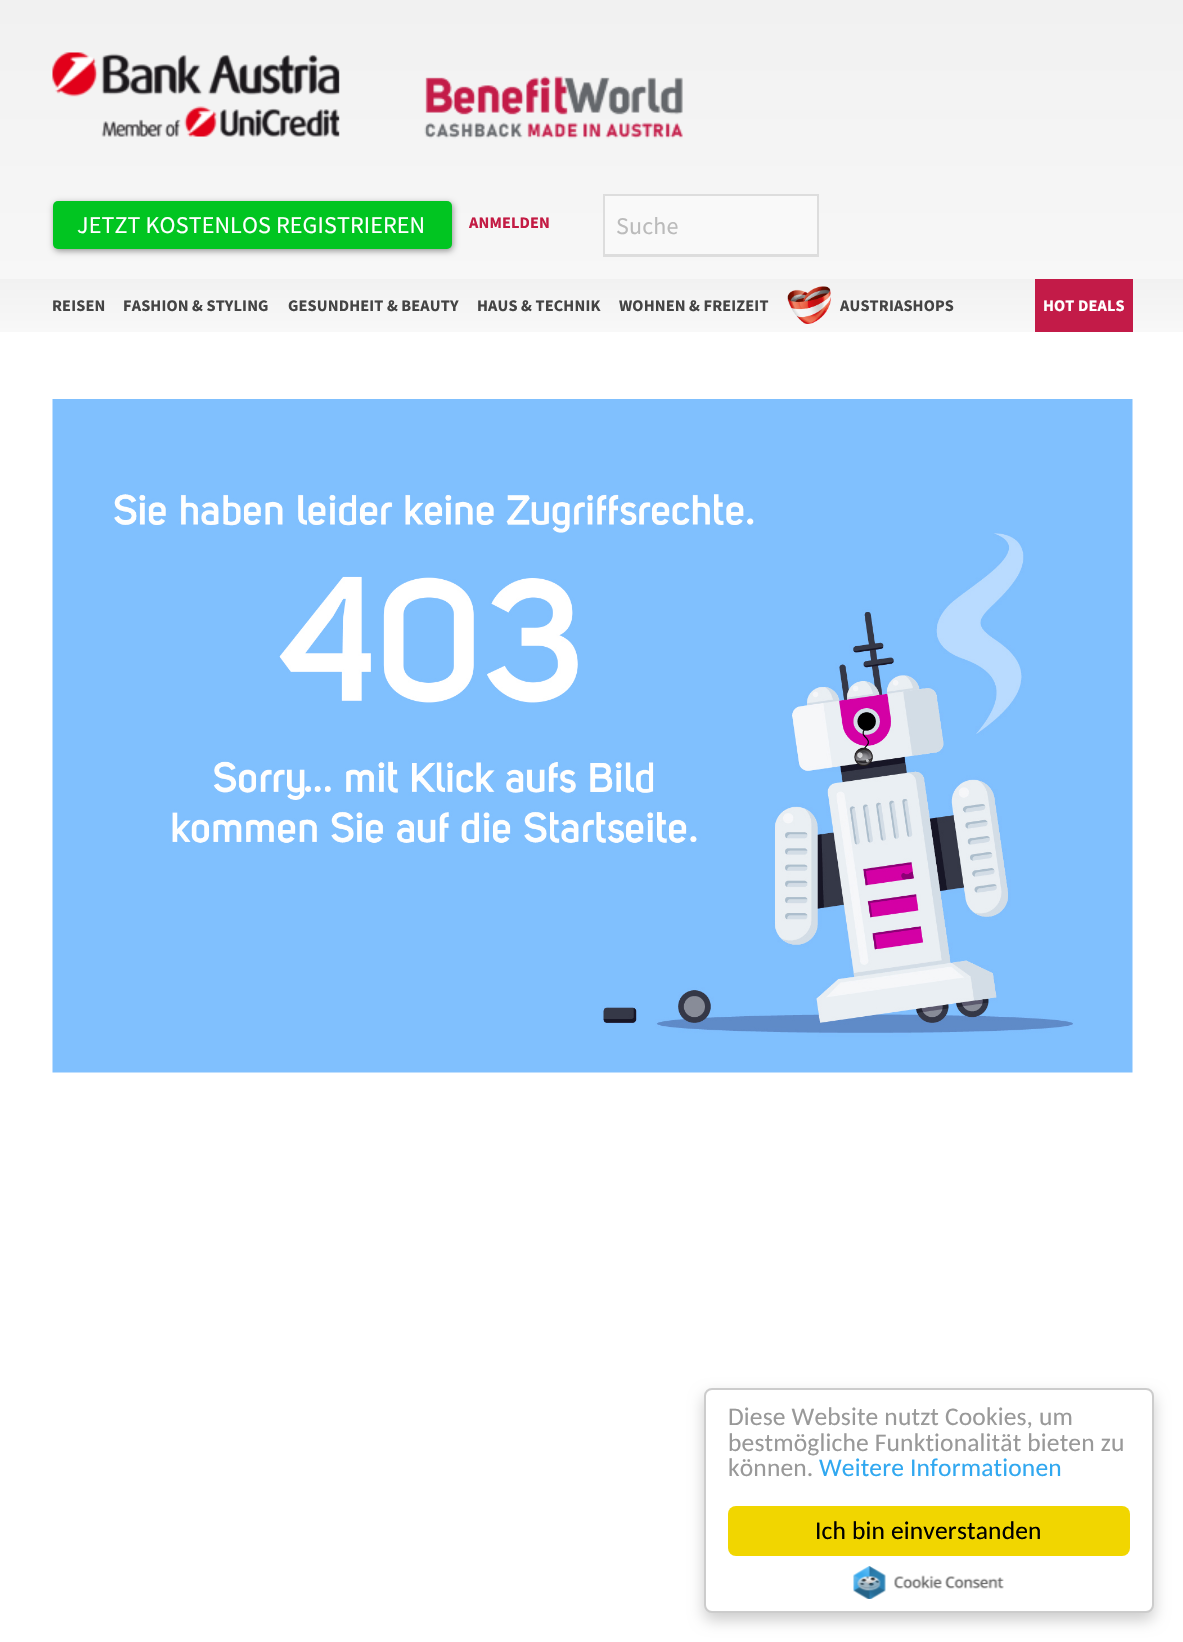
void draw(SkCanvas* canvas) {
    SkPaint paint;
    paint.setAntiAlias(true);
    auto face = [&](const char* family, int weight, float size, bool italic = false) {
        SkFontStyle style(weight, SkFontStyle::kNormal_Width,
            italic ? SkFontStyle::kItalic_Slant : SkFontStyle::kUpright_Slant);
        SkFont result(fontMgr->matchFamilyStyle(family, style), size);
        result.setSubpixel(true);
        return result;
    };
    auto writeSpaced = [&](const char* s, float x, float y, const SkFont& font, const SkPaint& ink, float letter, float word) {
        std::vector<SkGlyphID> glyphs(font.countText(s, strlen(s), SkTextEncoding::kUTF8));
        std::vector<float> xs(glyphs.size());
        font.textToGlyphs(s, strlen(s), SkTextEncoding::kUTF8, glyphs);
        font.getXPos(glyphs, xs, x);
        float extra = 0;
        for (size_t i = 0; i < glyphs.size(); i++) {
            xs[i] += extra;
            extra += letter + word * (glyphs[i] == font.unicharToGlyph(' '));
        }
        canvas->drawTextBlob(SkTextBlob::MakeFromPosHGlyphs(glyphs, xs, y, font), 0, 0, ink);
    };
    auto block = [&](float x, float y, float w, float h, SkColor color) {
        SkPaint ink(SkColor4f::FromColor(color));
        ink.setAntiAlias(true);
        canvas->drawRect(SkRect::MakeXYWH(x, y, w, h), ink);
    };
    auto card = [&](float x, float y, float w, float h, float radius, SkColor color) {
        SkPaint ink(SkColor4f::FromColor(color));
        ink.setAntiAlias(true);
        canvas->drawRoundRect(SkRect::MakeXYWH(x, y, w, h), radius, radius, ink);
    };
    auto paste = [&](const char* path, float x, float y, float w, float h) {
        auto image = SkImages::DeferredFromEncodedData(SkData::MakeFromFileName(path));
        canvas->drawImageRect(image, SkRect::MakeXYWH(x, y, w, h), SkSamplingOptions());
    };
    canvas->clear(SK_ColorWHITE);
    {
        const SkColor colors[] = {SkColorSetRGB(241, 241, 241), SkColorSetRGB(248, 248, 248)};
        const float stops[] = {0, 1};
        const SkPoint ends[] = {{592, 0}, {592, 332}};
        paint.setShader(SkGradientShader::MakeLinear(ends, colors, stops, 2, SkTileMode::kClamp));
        paint.setAlpha(255);
    }
    canvas->drawRect(SkRect::MakeXYWH(0, 0, 1183, 279), paint);
    paste("pic1.png", 52, 52, 631, 87);
    paint.setShader(nullptr);
    paint.setColor(SkColorSetARGB(102, 0, 0, 0));
    paint.setMaskFilter(SkMaskFilter::MakeBlur(kNormal_SkBlurStyle, 3));
    canvas->drawRoundRect(SkRect::MakeXYWH(54, 203, 399, 48), 5, 5, paint);
    paint.setMaskFilter(nullptr);
    card(53, 201, 399, 48, 5, SkColorSetRGB(1, 197, 33));
    auto kFont1 = face("Source Sans Pro", 400, 24);
    paint.setColor(SK_ColorWHITE);
    writeSpaced("JETZT KOSTENLOS REGISTRIEREN", 77, 233, kFont1, paint, 0.15f, 0);
    auto kFont2 = face("Source Sans Pro", 700, 16.25f);
    paint.setColor(SkColorSetRGB(195, 27, 68));
    writeSpaced("ANMELDEN", 469, 228, kFont2, paint, 0.15f, 0);
    block(605, 196, 212, 58, SkColorSetRGB(249, 249, 249));
    block(605, 254, 213, 1, SkColorSetRGB(221, 221, 221));
    paint.setStyle(SkPaint::kStroke_Style);
    paint.setStrokeWidth(2);
    paint.setColor(SkColorSetRGB(221, 221, 221));
    canvas->drawRect(SkRect::MakeXYWH(604, 195, 214, 61), paint);
    paint.setStyle(SkPaint::kFill_Style);
    paint.setColor(SkColorSetRGB(187, 187, 187));
    writeSpaced("Suche", 616, 234, kFont1, paint, 0.15f, 0);
    {
        const SkColor colors[] = {SkColorSetRGB(241, 241, 241), SkColorSetRGB(248, 248, 248)};
        const float stops[] = {0, 1};
        const SkPoint ends[] = {{592, 279}, {592, 332}};
        paint.setShader(SkGradientShader::MakeLinear(ends, colors, stops, 2, SkTileMode::kClamp));
        paint.setAlpha(255);
    }
    canvas->drawRect(SkRect::MakeXYWH(0, 279, 1183, 53), paint);
    paint.setShader(nullptr);
    paint.setColor(SkColorSetRGB(68, 68, 68));
    writeSpaced("REISEN", 52, 311, kFont2, paint, 0.15f, 0);
    writeSpaced("FASHION & STYLING", 123, 311, kFont2, paint, 0.15f, 0);
    writeSpaced("GESUNDHEIT & BEAUTY", 288, 311, kFont2, paint, 0.15f, 0);
    writeSpaced("HAUS & TECHNIK", 477, 311, kFont2, paint, 0.15f, 0);
    writeSpaced("WOHNEN & FREIZEIT", 619, 311, kFont2, paint, 0.15f, 0);
    paste("pic2.png", 787, 286, 44, 38);
    writeSpaced("AUSTRIASHOPS", 840, 311, kFont2, paint, 0.15f, 0);
    block(1035, 279, 98, 53, SkColorSetRGB(195, 27, 72));
    paint.setColor(SK_ColorWHITE);
    writeSpaced("HOT DEALS", 1043, 311, kFont2, paint, 0.15f, 0);
    paste("pic3.png", 52, 399, 1081, 674);
    paint.setColor(SkColorSetARGB(51, 0, 0, 0));
    paint.setMaskFilter(SkMaskFilter::MakeBlur(kNormal_SkBlurStyle, 7.5f));
    canvas->drawRoundRect(SkRect::MakeXYWH(704, 1395, 450, 225), 8, 8, paint);
    paint.setMaskFilter(nullptr);
    paint.setColor(SK_ColorWHITE);
    canvas->drawRoundRect(SkRect::MakeXYWH(705, 1389, 448, 223), 7, 7, paint);
    paint.setStyle(SkPaint::kStroke_Style);
    paint.setColor(SkColorSetRGB(204, 204, 204));
    canvas->drawRoundRect(SkRect::MakeXYWH(705, 1389, 448, 223), 7, 7, paint);
    auto kFont3 = face("Carlito", 400, 25.5f);
    paint.setStyle(SkPaint::kFill_Style);
    paint.setColor(SkColorSetRGB(153, 153, 153));
    writeSpaced("Diese Website nutzt Cookies, um", 728, 1425, kFont3, paint, 0.15f, 0);
    writeSpaced("bestmögliche Funktionalität bieten zu", 728, 1451, kFont3, paint, 0.15f, 0);
    writeSpaced("können.", 728, 1476, kFont3, paint, 0.15f, 0);
    paint.setColor(SkColorSetRGB(49, 168, 240));
    writeSpaced("Weitere Informationen", 819, 1476, kFont3, paint, 0.15f, 0);
    card(728, 1506, 402, 50, 8, SkColorSetRGB(241, 214, 0));
    paint.setColor(SK_ColorBLACK);
    writeSpaced("Ich bin einverstanden", 815, 1539, kFont3, paint, 0.15f, 0);
    paste("pic4.png", 853, 1566, 151, 33);
}
